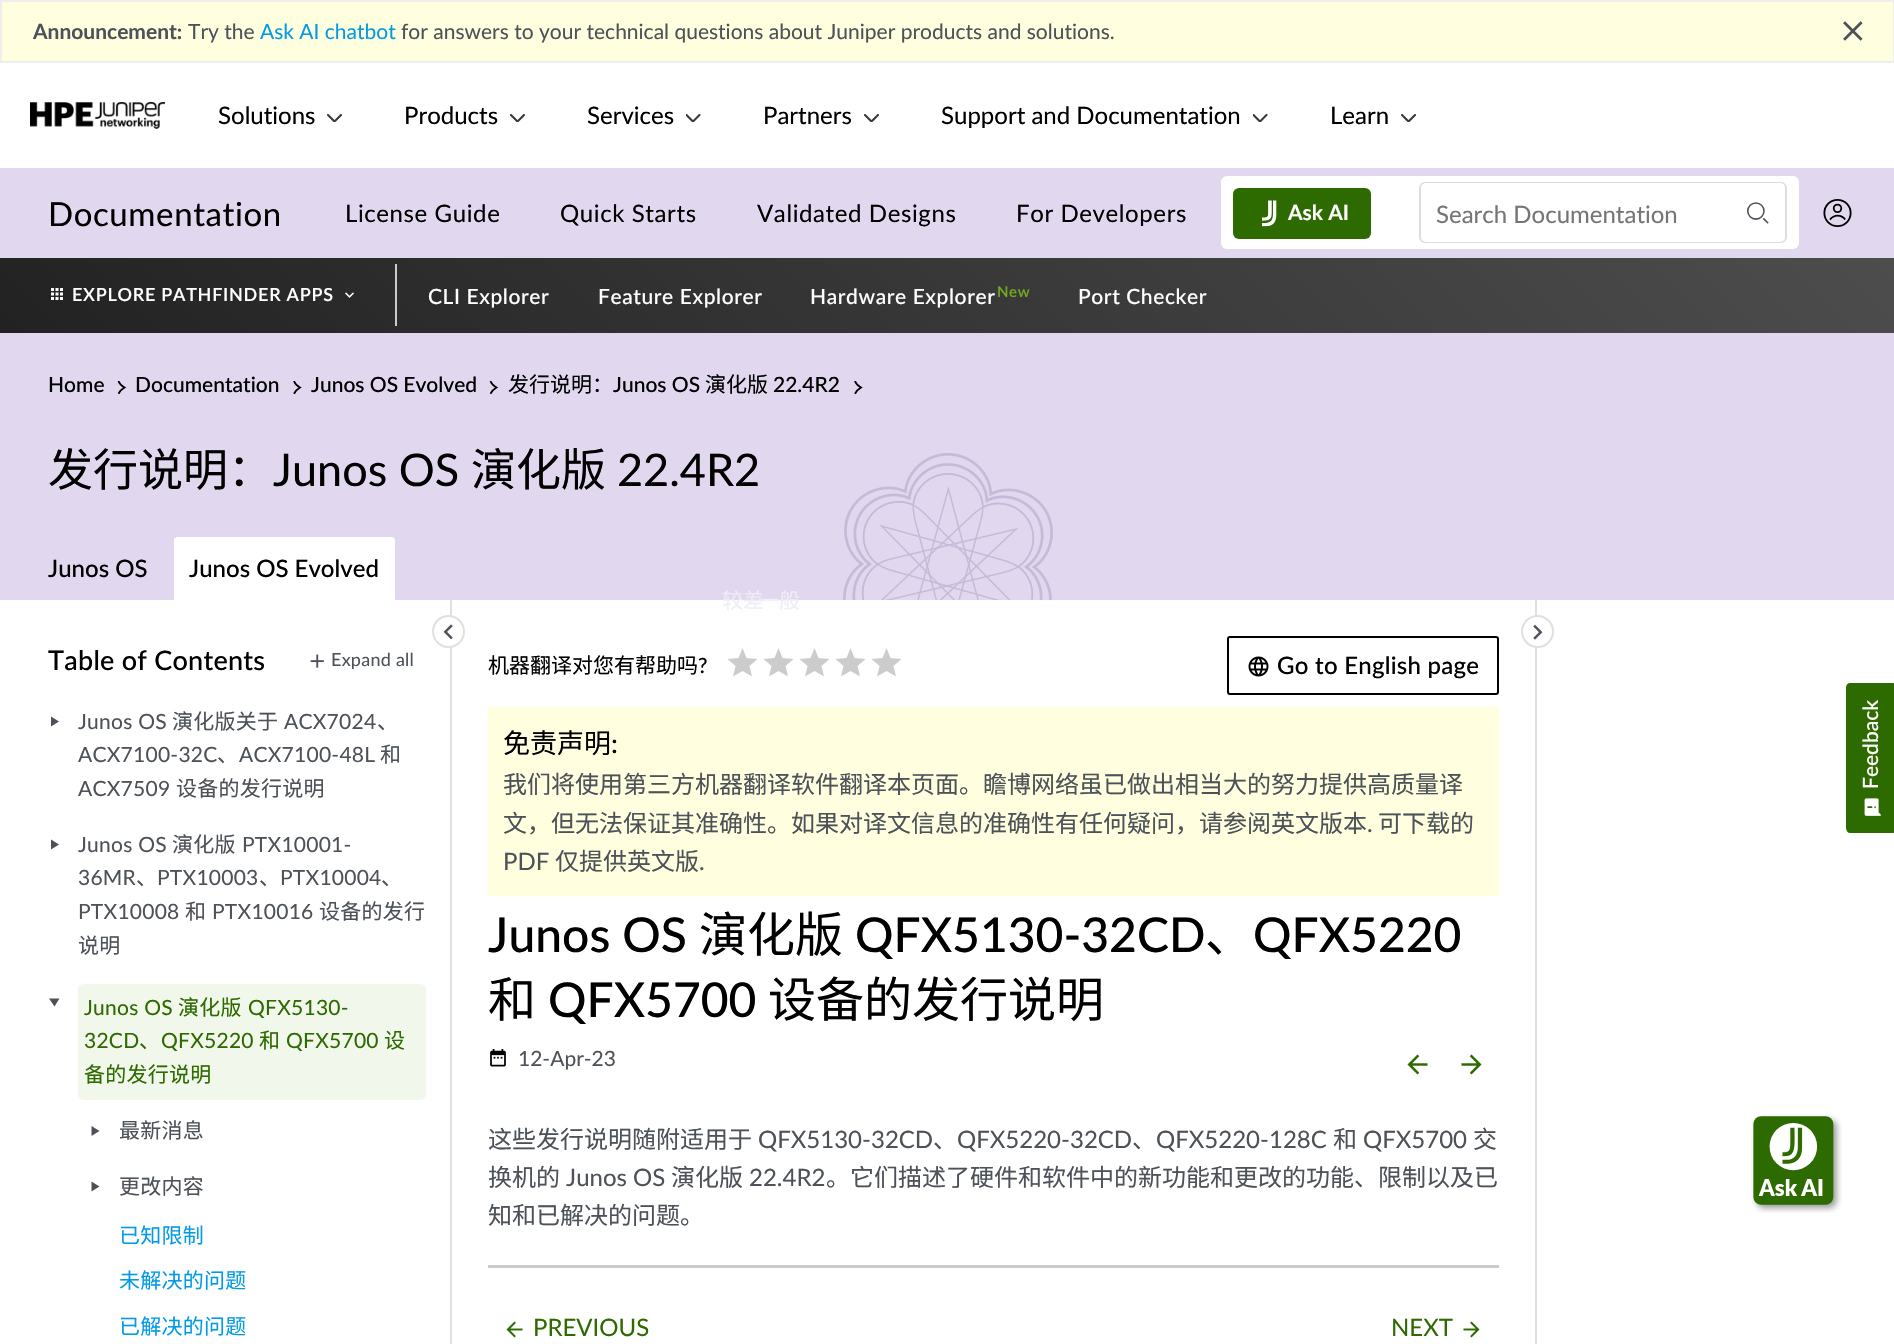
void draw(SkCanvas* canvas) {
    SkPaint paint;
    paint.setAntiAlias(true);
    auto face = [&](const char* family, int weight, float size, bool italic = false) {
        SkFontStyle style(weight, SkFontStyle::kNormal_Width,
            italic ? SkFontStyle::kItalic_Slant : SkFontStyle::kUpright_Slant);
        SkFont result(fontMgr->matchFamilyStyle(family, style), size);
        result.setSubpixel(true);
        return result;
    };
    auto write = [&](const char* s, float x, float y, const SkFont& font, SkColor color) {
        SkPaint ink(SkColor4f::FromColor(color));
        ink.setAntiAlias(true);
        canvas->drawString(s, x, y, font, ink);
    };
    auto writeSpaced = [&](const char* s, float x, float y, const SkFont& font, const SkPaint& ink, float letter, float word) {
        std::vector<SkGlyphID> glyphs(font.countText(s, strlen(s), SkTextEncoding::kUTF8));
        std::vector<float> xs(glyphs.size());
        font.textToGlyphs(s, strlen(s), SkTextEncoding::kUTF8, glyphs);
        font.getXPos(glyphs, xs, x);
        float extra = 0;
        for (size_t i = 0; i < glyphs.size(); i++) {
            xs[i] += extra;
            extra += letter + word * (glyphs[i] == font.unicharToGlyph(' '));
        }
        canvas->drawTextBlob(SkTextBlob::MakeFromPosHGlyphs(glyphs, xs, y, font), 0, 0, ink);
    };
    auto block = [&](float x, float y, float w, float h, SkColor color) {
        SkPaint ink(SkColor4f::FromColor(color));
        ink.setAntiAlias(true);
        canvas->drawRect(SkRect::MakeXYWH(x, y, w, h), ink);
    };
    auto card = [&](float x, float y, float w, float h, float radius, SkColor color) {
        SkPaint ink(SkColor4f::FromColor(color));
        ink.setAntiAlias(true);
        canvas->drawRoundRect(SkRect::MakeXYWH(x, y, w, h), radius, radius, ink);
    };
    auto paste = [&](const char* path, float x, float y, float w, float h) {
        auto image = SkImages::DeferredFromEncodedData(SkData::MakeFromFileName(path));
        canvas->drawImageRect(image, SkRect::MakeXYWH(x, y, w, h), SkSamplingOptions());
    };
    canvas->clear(SK_ColorWHITE);
    paint.setColor(SkColorSetRGB(255, 255, 224));
    canvas->drawRect(SkRect::MakeXYWH(1, 1, 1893, 61), paint);
    paint.setStyle(SkPaint::kStroke_Style);
    paint.setStrokeWidth(2);
    paint.setColor(SkColorSetRGB(238, 238, 238));
    canvas->drawRect(SkRect::MakeXYWH(1, 1, 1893, 61), paint);
    auto kFont1 = face("Lato", 700, 21);
    write("Announcement:", 33, 39, kFont1, SkColorSetRGB(77, 82, 89));
    auto kFont2 = face("Lato", 400, 21);
    write("Try the", 188, 39, kFont2, SkColorSetRGB(77, 82, 89));
    write("Ask AI chatbot", 260, 39, kFont2, SkColorSetRGB(3, 155, 229));
    write("for answers to your technical questions about Juniper products and solutions.", 401, 39, kFont2, SkColorSetRGB(77, 82, 89));
    paste("pic1.png", 1843, 21, 20, 20);
    paste("pic2.png", 30, 102, 135, 27);
    auto kFont3 = face("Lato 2", 400, 24);
    write("Solutions", 218, 124, kFont3, SK_ColorBLACK);
    canvas->save();
    canvas->clipRect(SkRect::MakeXYWH(327, 114, 15, 8));
    paint.setStrokeWidth(2.1f);
    paint.setStrokeCap(SkPaint::kRound_Cap);
    paint.setStrokeJoin(SkPaint::kRound_Join);
    paint.setColor(SkColorSetRGB(57, 57, 57));
    canvas->drawPath(SkPathBuilder().moveTo(328, 115).lineTo(334.5f, 121.5f).lineTo(341, 115).detach(), paint);
    canvas->restore();
    write("Products", 404, 124, kFont3, SK_ColorBLACK);
    canvas->save();
    canvas->clipRect(SkRect::MakeXYWH(510, 114, 15, 8));
    canvas->drawPath(SkPathBuilder().moveTo(511, 115).lineTo(517.5f, 121.5f).lineTo(524, 115).detach(), paint);
    canvas->restore();
    write("Services", 587, 124, kFont3, SK_ColorBLACK);
    canvas->save();
    canvas->clipRect(SkRect::MakeXYWH(686, 114, 15, 8));
    canvas->drawPath(SkPathBuilder().moveTo(686.5f, 115).lineTo(693, 121.5f).lineTo(699.5f, 115).detach(), paint);
    canvas->restore();
    write("Partners", 763, 124, kFont3, SK_ColorBLACK);
    canvas->save();
    canvas->clipRect(SkRect::MakeXYWH(864, 114, 15, 8));
    canvas->drawPath(SkPathBuilder().moveTo(865, 115).lineTo(871.5f, 121.5f).lineTo(878, 115).detach(), paint);
    canvas->restore();
    write("Support and Documentation", 941, 124, kFont3, SK_ColorBLACK);
    canvas->save();
    canvas->clipRect(SkRect::MakeXYWH(1253, 114, 15, 8));
    canvas->drawPath(SkPathBuilder().moveTo(1253.5f, 115).lineTo(1260, 121.5f).lineTo(1266.5f, 115).detach(), paint);
    canvas->restore();
    write("Learn", 1330, 124, kFont3, SK_ColorBLACK);
    canvas->save();
    canvas->clipRect(SkRect::MakeXYWH(1401, 114, 15, 8));
    canvas->drawPath(SkPathBuilder().moveTo(1402, 115).lineTo(1408.5f, 121.5f).lineTo(1415, 115).detach(), paint);
    canvas->restore();
    block(0, 168, 1894, 90, SkColorSetRGB(225, 216, 240));
    auto kFont4 = face("Lato", 400, 33);
    paint.setStyle(SkPaint::kFill_Style);
    paint.setColor(SK_ColorBLACK);
    writeSpaced("Documentation", 48, 226, kFont4, paint, 0.6f, 0);
    auto kFont5 = face("Lato", 400, 24);
    writeSpaced("License Guide", 345, 222, kFont5, paint, 0.6f, 0);
    writeSpaced("Quick Starts", 560, 222, kFont5, paint, 0.6f, 0);
    writeSpaced("Validated Designs", 757, 222, kFont5, paint, 0.6f, 0);
    writeSpaced("For Developers", 1016, 222, kFont5, paint, 0.6f, 0);
    card(1221, 176, 578, 73, 6, SK_ColorWHITE);
    card(1233, 188, 138, 51, 6, SkColorSetRGB(45, 106, 0));
    paste("pic3.png", 1262, 200, 15, 27);
    write("Ask AI", 1288, 220, kFont1, SK_ColorWHITE);
    paint.setStyle(SkPaint::kStroke_Style);
    paint.setStrokeWidth(2);
    paint.setStrokeCap(SkPaint::kButt_Cap);
    paint.setStrokeJoin(SkPaint::kMiter_Join);
    paint.setColor(SkColorSetRGB(221, 221, 221));
    canvas->drawRoundRect(SkRect::MakeXYWH(1420, 183, 366, 59), 5, 5, paint);
    card(1421, 183, 364, 59, 5, SK_ColorWHITE);
    write("Search Documentation", 1436, 223, kFont5, SkColorSetRGB(117, 117, 117));
    paste("pic4.png", 1747, 202, 22, 22);
    paste("pic5.png", 1823, 199, 29, 28);
    paint.setStyle(SkPaint::kFill_Style);
    {
        const SkColor colors[] = {SkColorSetRGB(34, 34, 34), SkColorSetRGB(77, 77, 77)};
        const float stops[] = {0, 1};
        const SkPoint ends[] = {{455, 788}, {1440, -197}};
        paint.setShader(SkGradientShader::MakeLinear(ends, colors, stops, 2, SkTileMode::kClamp));
        paint.setAlpha(255);
    }
    canvas->drawRect(SkRect::MakeXYWH(0, 258, 1894, 75), paint);
    paste("pic6.png", 51, 288, 12, 12);
    auto kFont6 = face("Lato", 600, 18);
    paint.setShader(nullptr);
    paint.setColor(SK_ColorWHITE);
    writeSpaced("EXPLORE PATHFINDER APPS", 72, 301, kFont6, paint, 0.75f, 0);
    paste("pic7.png", 345, 292, 9, 6);
    block(395, 264, 2, 62, SkColorSetRGB(204, 204, 204));
    auto kFont7 = face("Lato", 500, 21);
    writeSpaced("CLI Explorer", 428, 304, kFont7, paint, 0.6f, 0);
    writeSpaced("Feature Explorer", 598, 304, kFont7, paint, 0.6f, 0);
    writeSpaced("Hardware Explorer", 810, 304, kFont7, paint, 0.6f, 0);
    auto kFont8 = face("Lato", 600, 15);
    paint.setColor(SkColorSetRGB(115, 170, 30));
    writeSpaced("New", 997, 297, kFont8, paint, 0.6f, 0);
    paint.setColor(SK_ColorWHITE);
    writeSpaced("Port Checker", 1078, 304, kFont7, paint, 0.6f, 0);
    block(0, 333, 1894, 267, SkColorSetRGB(225, 216, 240));
    paste("pic8.png", 843, 453, 210, 147);
    write("Home", 48, 392, kFont7, SK_ColorBLACK);
    paste("pic9.png", 117, 381, 10, 14);
    write("Documentation", 135, 392, kFont7, SK_ColorBLACK);
    paste("pic10.png", 293, 381, 9, 14);
    write("Junos OS Evolved", 311, 392, kFont7, SK_ColorBLACK);
    paste("pic9.png", 489, 381, 10, 14);
    auto kFont9 = face("Noto Sans CJK SC", 400, 21);
    write("发行说明：", 508, 392, kFont9, SK_ColorBLACK);
    write("Junos OS", 613, 392, kFont7, SK_ColorBLACK);
    write("演化版", 705, 392, kFont9, SK_ColorBLACK);
    write("22.4R2", 773, 392, kFont7, SK_ColorBLACK);
    paste("pic10.png", 854, 381, 9, 14);
    auto kFont10 = face("Noto Sans CJK SC", 400, 45);
    write("发行说明：", 48, 486, kFont10, SK_ColorBLACK);
    auto kFont11 = face("Lato", 400, 45);
    write("Junos OS", 273, 486, kFont11, SK_ColorBLACK);
    write("演化版", 471, 486, kFont10, SK_ColorBLACK);
    write("22.4R2", 617, 486, kFont11, SK_ColorBLACK);
    auto kFont12 = face("Lato", 500, 24);
    write("Junos OS", 48, 577, kFont12, SK_ColorBLACK);
    canvas->drawPath(SkPathBuilder().moveTo(177, 537).lineTo(392, 537).cubicTo(393.5f, 537, 395, 538.5f, 395, 540).lineTo(395, 600).lineTo(174, 600).lineTo(174, 540).cubicTo(174, 538.5f, 175.5f, 537, 177, 537).close().detach(), paint);
    write("Junos OS Evolved", 189, 577, kFont12, SK_ColorBLACK);
    block(450, 600, 2, 744, SkColorSetRGB(224, 224, 224));
    canvas->drawCircle(448.5f, 631.5f, 15.5f, paint);
    paint.setStyle(SkPaint::kStroke_Style);
    paint.setColor(SkColorSetRGB(224, 224, 224));
    canvas->drawCircle(448.5f, 631.5f, 15.5f, paint);
    paste("pic11.png", 443, 624, 10, 16);
    auto kFont13 = face("Lato", 500, 27);
    paint.setStyle(SkPaint::kFill_Style);
    paint.setColor(SK_ColorBLACK);
    writeSpaced("Table of Contents", 48, 670, kFont13, paint, 0.25f, 0);
    paste("pic12.png", 310, 654, 14, 14);
    auto kFont14 = face("Lato", 400, 18);
    paint.setColor(SkColorSetRGB(77, 82, 89));
    writeSpaced("Expand all", 331, 666, kFont14, paint, 0.25f, 0);
    canvas->drawPath(SkPathBuilder().moveTo(51, 716.5f).lineTo(59, 721.5f).lineTo(51, 726.5f).close().detach(), paint);
    writeSpaced("Junos OS", 78, 729, kFont2, paint, 0.25f, 0);
    writeSpaced("演化版关于", 172, 729, kFont9, paint, 0.25f, 0);
    writeSpaced("ACX7024", 284, 729, kFont2, paint, 0.25f, 0);
    writeSpaced("、", 377, 729, kFont9, paint, 0.25f, 0);
    writeSpaced("ACX7100-32C", 78, 762, kFont2, paint, 0.25f, 0);
    writeSpaced("、", 217, 762, kFont9, paint, 0.25f, 0);
    writeSpaced("ACX7100-48L", 239, 762, kFont2, paint, 0.25f, 0);
    writeSpaced("和", 380, 762, kFont9, paint, 0.25f, 0);
    writeSpaced("ACX7509", 78, 796, kFont2, paint, 0.25f, 0);
    writeSpaced("设备的发行说明", 176, 796, kFont9, paint, 0.25f, 0);
    canvas->drawPath(SkPathBuilder().moveTo(51, 839.5f).lineTo(59, 844.5f).lineTo(51, 849.5f).close().detach(), paint);
    writeSpaced("Junos OS", 78, 852, kFont2, paint, 0.25f, 0);
    writeSpaced("演化版", 172, 852, kFont9, paint, 0.25f, 0);
    writeSpaced("PTX10001-", 242, 852, kFont2, paint, 0.25f, 0);
    writeSpaced("36MR", 78, 885, kFont2, paint, 0.25f, 0);
    writeSpaced("、", 136, 885, kFont9, paint, 0.25f, 0);
    writeSpaced("PTX10003", 157, 885, kFont2, paint, 0.25f, 0);
    writeSpaced("、", 259, 885, kFont9, paint, 0.25f, 0);
    writeSpaced("PTX10004", 280, 885, kFont2, paint, 0.25f, 0);
    writeSpaced("、", 381, 885, kFont9, paint, 0.25f, 0);
    writeSpaced("PTX10008", 78, 919, kFont2, paint, 0.25f, 0);
    writeSpaced("和", 185, 919, kFont9, paint, 0.25f, 0);
    writeSpaced("PTX10016", 212, 919, kFont2, paint, 0.25f, 0);
    writeSpaced("设备的发行", 319, 919, kFont9, paint, 0.25f, 0);
    writeSpaced("说明", 78, 953, kFont9, paint, 0.25f, 0);
    canvas->drawPath(SkPathBuilder().moveTo(59.5f, 998.5f).lineTo(54.5f, 1006.5f).lineTo(49, 998.5f).close().detach(), paint);
    card(78, 984, 348, 116, 6, SkColorSetRGB(242, 247, 235));
    paint.setColor(SkColorSetRGB(45, 106, 0));
    writeSpaced("Junos OS", 84, 1015, kFont2, paint, 0.25f, 0);
    writeSpaced("演化版", 178, 1015, kFont9, paint, 0.25f, 0);
    writeSpaced("QFX5130-", 248, 1015, kFont2, paint, 0.25f, 0);
    writeSpaced("32CD", 84, 1048, kFont2, paint, 0.25f, 0);
    writeSpaced("、", 139, 1048, kFont9, paint, 0.25f, 0);
    writeSpaced("QFX5220", 161, 1048, kFont2, paint, 0.25f, 0);
    writeSpaced("和", 259, 1048, kFont9, paint, 0.25f, 0);
    writeSpaced("QFX5700", 286, 1048, kFont2, paint, 0.25f, 0);
    writeSpaced("设", 384, 1048, kFont9, paint, 0.25f, 0);
    writeSpaced("备的发行说明", 84, 1082, kFont9, paint, 0.25f, 0);
    paint.setColor(SkColorSetRGB(77, 82, 89));
    canvas->drawPath(SkPathBuilder().moveTo(91.5f, 1126).lineTo(99.5f, 1131).lineTo(91.5f, 1136).close().detach(), paint);
    writeSpaced("最新消息", 119, 1138, kFont9, paint, 0.25f, 0);
    canvas->drawPath(SkPathBuilder().moveTo(91.5f, 1181.5f).lineTo(99.5f, 1186.5f).lineTo(91.5f, 1191.5f).close().detach(), paint);
    writeSpaced("更改内容", 119, 1194, kFont9, paint, 0.25f, 0);
    paint.setColor(SkColorSetRGB(3, 155, 229));
    writeSpaced("已知限制", 119, 1243, kFont9, paint, 0.25f, 0);
    writeSpaced("未解决的问题", 119, 1288, kFont9, paint, 0.25f, 0);
    writeSpaced("已解决的问题", 119, 1334, kFont9, paint, 0.25f, 0);
    write("较差", 722, 608, kFont9, SkColorSetRGB(240, 236, 248));
    paint.setColor(SkColorSetRGB(204, 204, 204));
    canvas->drawPath(SkPathBuilder().moveTo(742.5f, 671).lineTo(733, 676.5f).lineTo(735.5f, 666).lineTo(727.5f, 659).lineTo(738.5f, 658).lineTo(742.5f, 648).lineTo(746.5f, 658).lineTo(757.5f, 659).lineTo(749.5f, 666).lineTo(752, 676.5f).close().detach(), paint);
    write("一般", 758, 608, kFont9, SkColorSetRGB(240, 236, 248));
    canvas->drawPath(SkPathBuilder().moveTo(778.5f, 671).lineTo(769, 676.5f).lineTo(771.5f, 666).lineTo(763.5f, 659).lineTo(774.5f, 658).lineTo(778.5f, 648).lineTo(782.5f, 658).lineTo(793.5f, 659).lineTo(785.5f, 666).lineTo(788, 676.5f).close().detach(), paint);
    canvas->drawPath(SkPathBuilder().moveTo(814.5f, 671).lineTo(805, 676.5f).lineTo(807.5f, 666).lineTo(799.5f, 659).lineTo(810.5f, 658).lineTo(814.5f, 648).lineTo(818.5f, 658).lineTo(829.5f, 659).lineTo(821.5f, 666).lineTo(824, 676.5f).close().detach(), paint);
    canvas->drawPath(SkPathBuilder().moveTo(850.5f, 671).lineTo(841, 676.5f).lineTo(843.5f, 666).lineTo(835.5f, 659).lineTo(846.5f, 658).lineTo(850.5f, 648).lineTo(854.5f, 658).lineTo(865.5f, 659).lineTo(857.5f, 666).lineTo(860, 676.5f).close().detach(), paint);
    canvas->drawPath(SkPathBuilder().moveTo(886.5f, 671).lineTo(877, 676.5f).lineTo(879.5f, 666).lineTo(871.5f, 659).lineTo(882.5f, 658).lineTo(886.5f, 648).lineTo(890.5f, 658).lineTo(901.5f, 659).lineTo(893.5f, 666).lineTo(896, 676.5f).close().detach(), paint);
    write("机器翻译对您有帮助吗", 488, 673, kFont9, SK_ColorBLACK);
    write("?", 698, 673, kFont7, SK_ColorBLACK);
    paint.setStyle(SkPaint::kStroke_Style);
    paint.setColor(SK_ColorBLACK);
    canvas->drawRoundRect(SkRect::MakeXYWH(1228, 637, 270, 57), 2, 2, paint);
    paste("pic13.png", 1248, 656, 21, 21);
    paint.setStyle(SkPaint::kFill_Style);
    writeSpaced("Go to English page", 1277, 674, kFont12, paint, 0.25f, 0);
    block(488, 707, 1011, 189, SkColorSetRGB(255, 255, 224));
    auto kFont15 = face("Noto Sans CJK SC", 400, 27);
    write("免责声明", 503, 753, kFont15, SK_ColorBLACK);
    write(":", 611, 753, kFont13, SK_ColorBLACK);
    auto kFont16 = face("Noto Sans CJK SC", 400, 24);
    write("我们将使用第三方机器翻译软件翻译本页面。瞻博网络虽已做出相当大的努力提供高质量译", 503, 793, kFont16, SkColorSetRGB(77, 82, 89));
    write("文，但无法保证其准确性。如果对译文信息的准确性有任何疑问，请参阅英文版本", 503, 832, kFont16, SkColorSetRGB(77, 82, 89));
    write(".", 1367, 832, kFont5, SkColorSetRGB(77, 82, 89));
    write("可下载的", 1378, 832, kFont16, SkColorSetRGB(77, 82, 89));
    write("PDF", 503, 870, kFont5, SkColorSetRGB(77, 82, 89));
    write("仅提供英文版", 555, 870, kFont16, SkColorSetRGB(77, 82, 89));
    write(".", 699, 870, kFont5, SkColorSetRGB(77, 82, 89));
    auto kFont17 = face("Lato", 500, 48);
    write("Junos OS", 488, 952, kFont17, SK_ColorBLACK);
    auto kFont18 = face("Noto Sans CJK SC", 400, 48);
    write("演化版", 699, 952, kFont18, SK_ColorBLACK);
    write("QFX5130-32CD", 855, 952, kFont17, SK_ColorBLACK);
    write("、", 1205, 952, kFont18, SK_ColorBLACK);
    write("QFX5220", 1253, 952, kFont17, SK_ColorBLACK);
    write("和", 488, 1017, kFont18, SK_ColorBLACK);
    write("QFX5700", 548, 1017, kFont17, SK_ColorBLACK);
    write("设备的发行说明", 768, 1017, kFont18, SK_ColorBLACK);
    paste("pic14.png", 490, 1049, 16, 18);
    write("12-Apr-23", 518, 1066, kFont2, SkColorSetRGB(77, 82, 89));
    paste("pic15.png", 1407, 1054, 21, 21);
    paste("pic16.png", 1461, 1054, 21, 21);
    write("这些发行说明随附适用于", 488, 1148, kFont16, SkColorSetRGB(77, 82, 89));
    write("QFX5130-32CD", 758, 1148, kFont5, SkColorSetRGB(77, 82, 89));
    write("、", 933, 1148, kFont16, SkColorSetRGB(77, 82, 89));
    write("QFX5220-32CD", 957, 1148, kFont5, SkColorSetRGB(77, 82, 89));
    write("、", 1132, 1148, kFont16, SkColorSetRGB(77, 82, 89));
    write("QFX5220-128C", 1156, 1148, kFont5, SkColorSetRGB(77, 82, 89));
    write("和", 1333, 1148, kFont16, SkColorSetRGB(77, 82, 89));
    write("QFX5700", 1363, 1148, kFont5, SkColorSetRGB(77, 82, 89));
    write("交", 1473, 1148, kFont16, SkColorSetRGB(77, 82, 89));
    write("换机的", 488, 1186, kFont16, SkColorSetRGB(77, 82, 89));
    write("Junos OS", 566, 1186, kFont5, SkColorSetRGB(77, 82, 89));
    write("演化版", 671, 1186, kFont16, SkColorSetRGB(77, 82, 89));
    write("22.4R2", 749, 1186, kFont5, SkColorSetRGB(77, 82, 89));
    write("。它们描述了硬件和软件中的新功能和更改的功能、限制以及已", 826, 1186, kFont16, SkColorSetRGB(77, 82, 89));
    write("知和已解决的问题。", 488, 1224, kFont16, SkColorSetRGB(77, 82, 89));
    block(488, 1265, 1011, 3, SkColorSetRGB(204, 204, 204));
    paste("pic17.png", 506, 1321, 17, 17);
    write("PREVIOUS", 533, 1336, kFont5, SkColorSetRGB(45, 106, 0));
    write("NEXT", 1391, 1336, kFont5, SkColorSetRGB(45, 106, 0));
    paste("pic18.png", 1463, 1321, 17, 17);
    block(1535, 600, 2, 744, SkColorSetRGB(224, 224, 224));
    paint.setColor(SK_ColorWHITE);
    canvas->drawCircle(1537.5f, 631.5f, 15.5f, paint);
    paint.setStyle(SkPaint::kStroke_Style);
    paint.setColor(SkColorSetRGB(224, 224, 224));
    canvas->drawCircle(1537.5f, 631.5f, 15.5f, paint);
    paste("pic19.png", 1533, 624, 10, 16);
    paste("pic20.png", 1751, 1114, 91, 99);
    paint.setStyle(SkPaint::kFill_Style);
    paint.setColor(SkColorSetRGB(45, 106, 0));
    canvas->drawPath(SkPathBuilder().moveTo(1846, 828).lineTo(1846, 687).cubicTo(1846, 685, 1848, 683, 1850, 683).lineTo(1892, 683).cubicTo(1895, 683, 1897, 685, 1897, 687).lineTo(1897, 828).cubicTo(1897, 831, 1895, 833, 1892, 833).lineTo(1850, 833).cubicTo(1848, 833, 1846, 831, 1846, 828).close().detach(), paint);
    canvas->save();
    canvas->rotate(-90, 1878, 789);
    write("Feedback", 1878, 789, kFont7, SK_ColorWHITE);
    canvas->restore();
    paste("pic21.png", 1864, 798, 17, 18);
}
